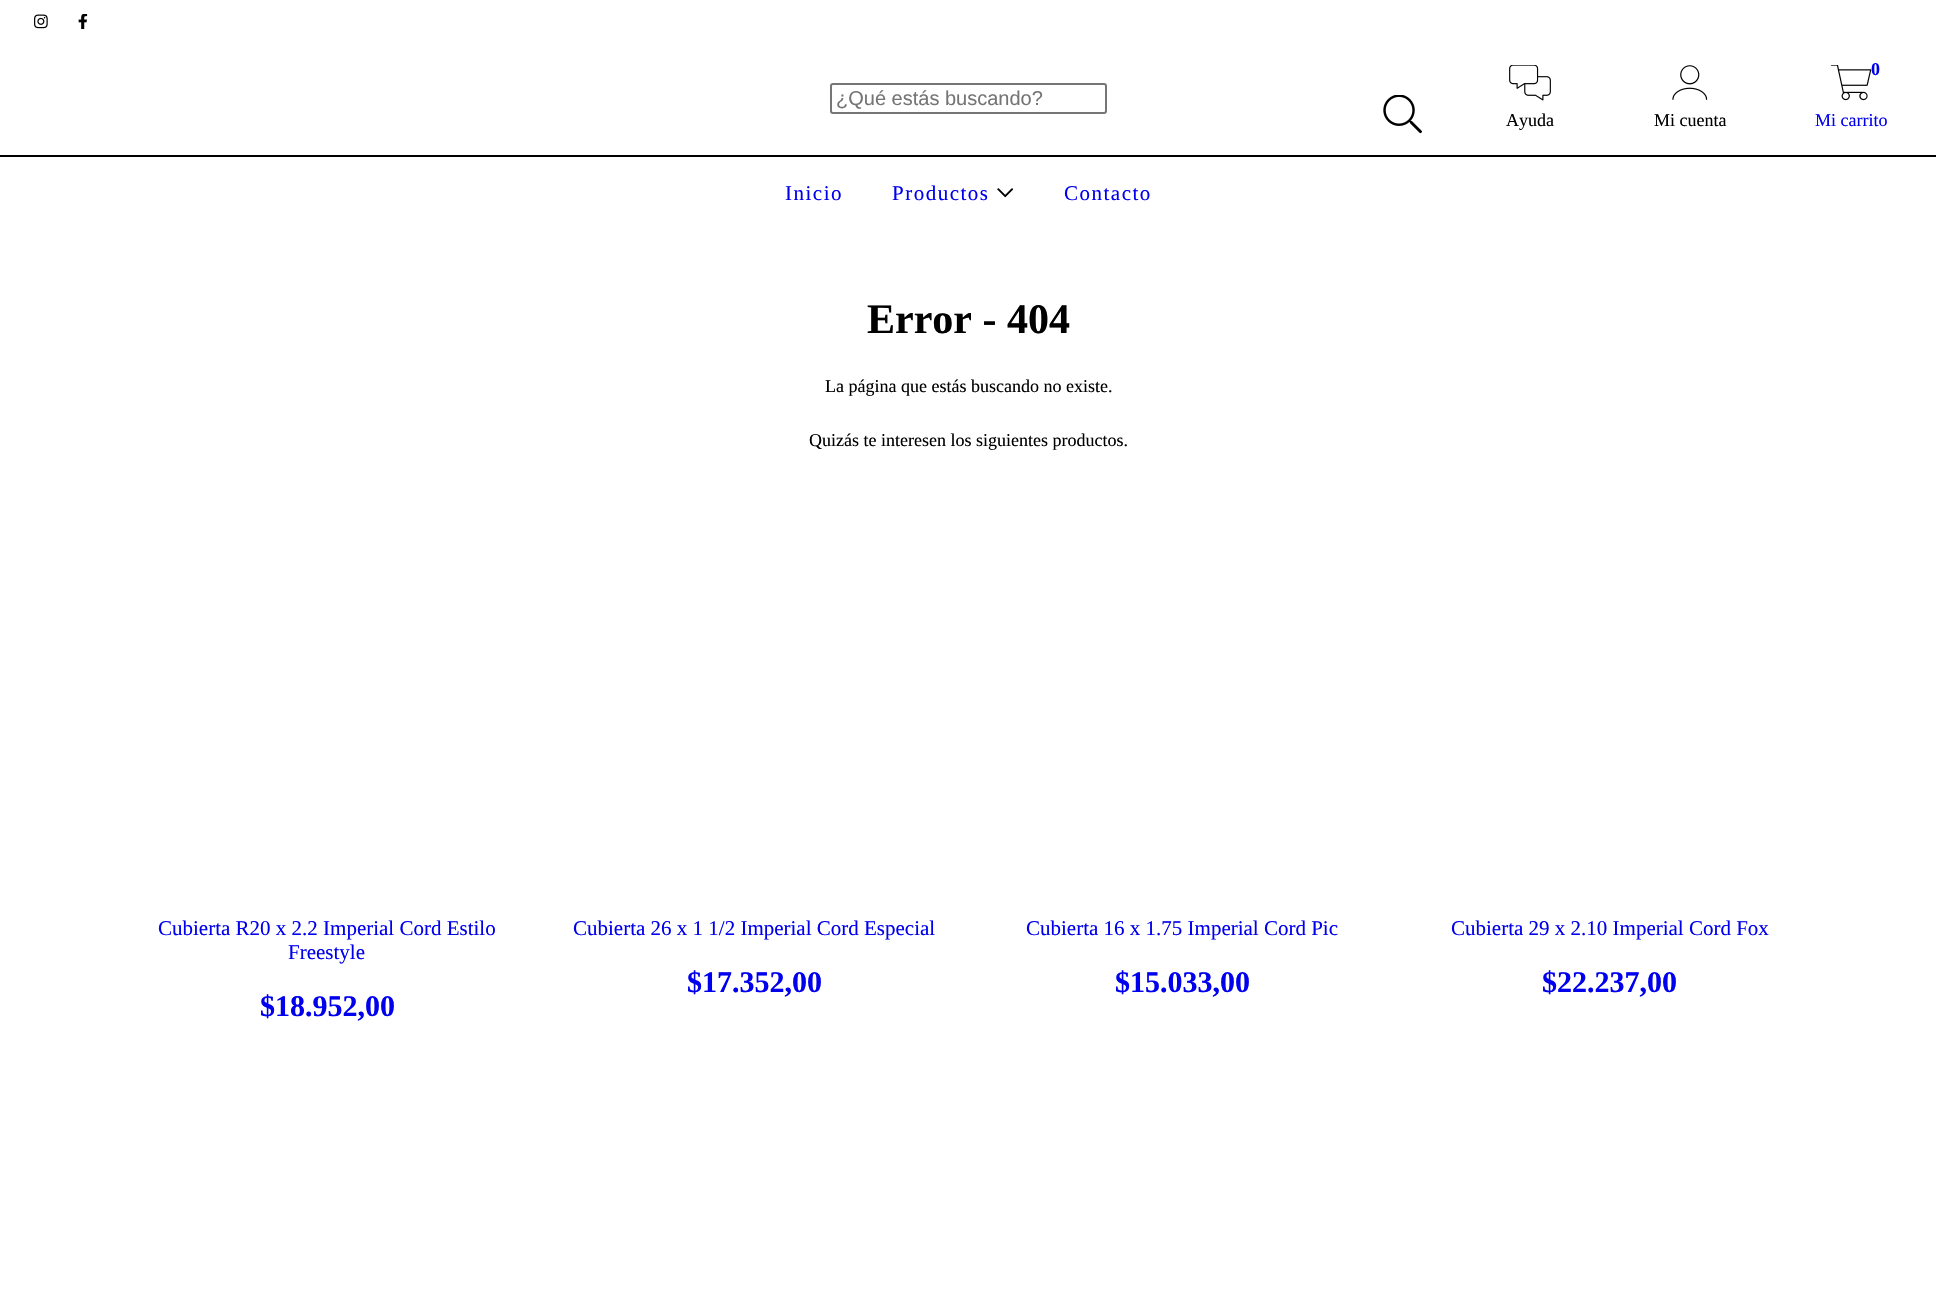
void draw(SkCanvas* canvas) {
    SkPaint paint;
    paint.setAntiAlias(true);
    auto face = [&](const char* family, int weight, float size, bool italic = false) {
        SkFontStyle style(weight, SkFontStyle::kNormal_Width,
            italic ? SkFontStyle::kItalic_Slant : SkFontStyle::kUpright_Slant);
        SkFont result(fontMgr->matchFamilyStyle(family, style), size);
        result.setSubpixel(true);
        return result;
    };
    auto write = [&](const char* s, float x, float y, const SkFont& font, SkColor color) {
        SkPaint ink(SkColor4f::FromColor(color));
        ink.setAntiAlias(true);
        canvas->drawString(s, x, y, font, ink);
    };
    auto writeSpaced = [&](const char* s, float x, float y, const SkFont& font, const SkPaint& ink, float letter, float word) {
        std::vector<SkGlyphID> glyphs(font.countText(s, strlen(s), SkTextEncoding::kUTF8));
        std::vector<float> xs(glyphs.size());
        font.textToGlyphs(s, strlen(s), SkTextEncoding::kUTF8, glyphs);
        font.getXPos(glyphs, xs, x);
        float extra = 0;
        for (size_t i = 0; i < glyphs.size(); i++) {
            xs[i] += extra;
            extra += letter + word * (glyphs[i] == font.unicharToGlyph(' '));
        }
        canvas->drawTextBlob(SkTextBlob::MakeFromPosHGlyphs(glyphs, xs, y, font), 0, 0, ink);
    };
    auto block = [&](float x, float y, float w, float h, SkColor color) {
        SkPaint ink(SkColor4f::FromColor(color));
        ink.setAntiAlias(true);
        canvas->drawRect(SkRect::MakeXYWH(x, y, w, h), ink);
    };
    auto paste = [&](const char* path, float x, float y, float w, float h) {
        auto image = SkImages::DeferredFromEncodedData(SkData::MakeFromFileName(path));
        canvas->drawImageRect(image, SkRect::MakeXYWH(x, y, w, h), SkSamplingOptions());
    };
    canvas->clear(SK_ColorWHITE);
    paste("pic1.png", 34, 14, 14, 15);
    paste("pic2.png", 78, 14, 10, 15);
    paint.setStyle(SkPaint::kStroke_Style);
    paint.setStrokeWidth(2);
    paint.setColor(SkColorSetRGB(118, 118, 118));
    canvas->drawRoundRect(SkRect::MakeXYWH(831, 84, 275, 29), 2, 2, paint);
    auto kFont1 = face("Liberation Sans", 400, 20);
    write("¿Qué estás buscando?", 836, 105, kFont1, SkColorSetRGB(117, 117, 117));
    paste("pic3.png", 1383, 95, 39, 39);
    paste("pic4.png", 1509, 65, 42, 36);
    auto kFont2 = face("Liberation Serif", 400, 18);
    write("Ayuda", 1506, 126, kFont2, SK_ColorBLACK);
    paste("pic5.png", 1672, 65, 36, 35);
    write("Mi cuenta", 1654, 126, kFont2, SK_ColorBLACK);
    paste("pic6.png", 1830, 65, 42, 36);
    auto kFont3 = face("Liberation Serif", 700, 18);
    write("0", 1871, 75, kFont3, SkColorSetRGB(0, 0, 238));
    write("Mi carrito", 1815, 126, kFont2, SkColorSetRGB(0, 0, 238));
    block(0, 155, 1936, 2, SK_ColorBLACK);
    auto kFont4 = face("Liberation Serif", 400, 21);
    paint.setStyle(SkPaint::kFill_Style);
    paint.setColor(SkColorSetRGB(0, 0, 238));
    writeSpaced("Inicio", 785, 200, kFont4, paint, 1.5f, 0);
    writeSpaced("Productos", 892, 200, kFont4, paint, 1.5f, 0);
    paste("pic7.png", 997, 188, 17, 10);
    writeSpaced("Contacto", 1064, 200, kFont4, paint, 1.5f, 0);
    auto kFont5 = face("Liberation Serif", 700, 42);
    write("Error - 404", 867, 333, kFont5, SK_ColorBLACK);
    write("La página que estás buscando no existe.", 825, 392, kFont2, SK_ColorBLACK);
    write("Quizás te interesen los siguientes productos.", 809, 446, kFont2, SK_ColorBLACK);
    write("Cubierta R20 x 2.2 Imperial Cord Estilo", 158, 935, kFont4, SkColorSetRGB(0, 0, 238));
    write("Freestyle", 288, 959, kFont4, SkColorSetRGB(0, 0, 238));
    auto kFont6 = face("Liberation Serif", 700, 30);
    write("$18.952,00", 260, 1016, kFont6, SkColorSetRGB(0, 0, 238));
    write("Cubierta 26 x 1 1/2 Imperial Cord Especial", 573, 935, kFont4, SkColorSetRGB(0, 0, 238));
    write("$17.352,00", 687, 992, kFont6, SkColorSetRGB(0, 0, 238));
    write("Cubierta 16 x 1.75 Imperial Cord Pic", 1026, 935, kFont4, SkColorSetRGB(0, 0, 238));
    write("$15.033,00", 1115, 992, kFont6, SkColorSetRGB(0, 0, 238));
    write("Cubierta 29 x 2.10 Imperial Cord Fox", 1451, 935, kFont4, SkColorSetRGB(0, 0, 238));
    write("$22.237,00", 1542, 992, kFont6, SkColorSetRGB(0, 0, 238));
}
